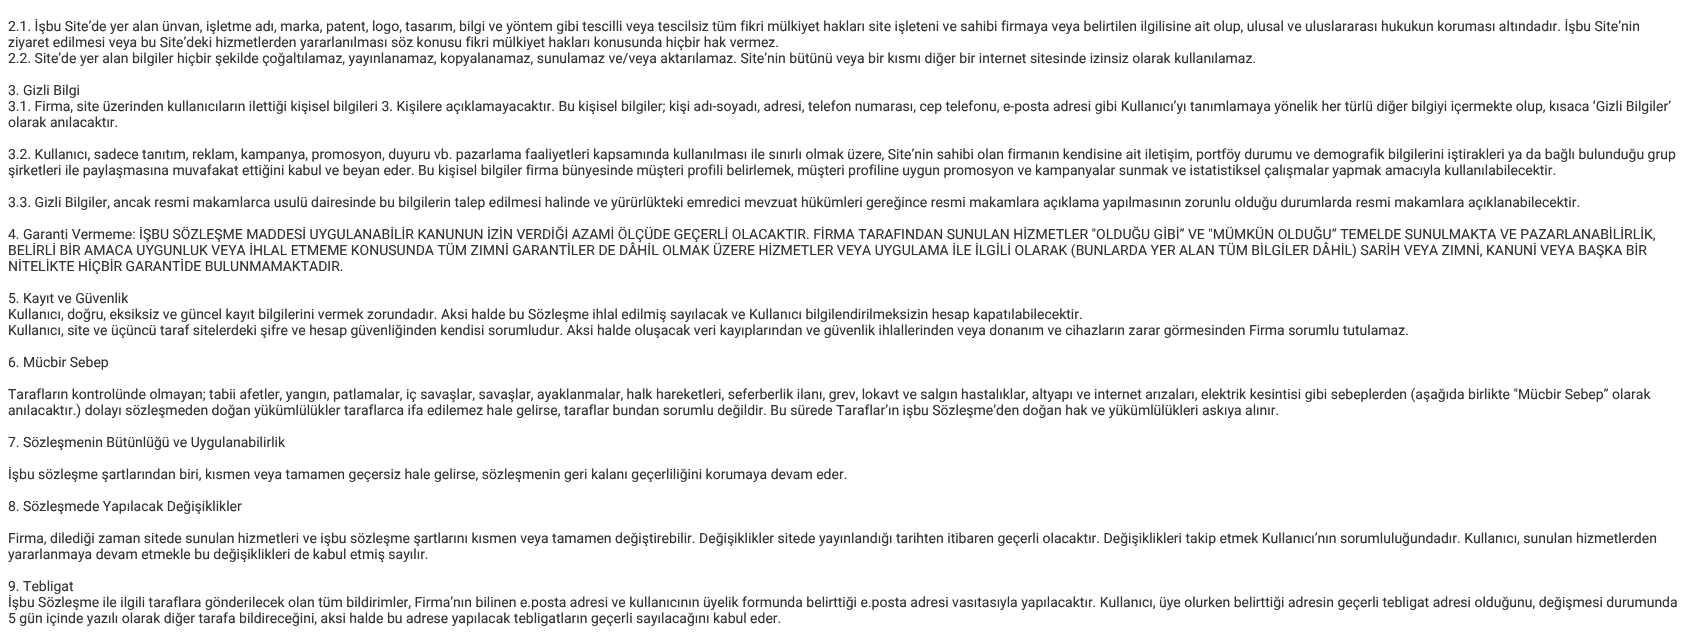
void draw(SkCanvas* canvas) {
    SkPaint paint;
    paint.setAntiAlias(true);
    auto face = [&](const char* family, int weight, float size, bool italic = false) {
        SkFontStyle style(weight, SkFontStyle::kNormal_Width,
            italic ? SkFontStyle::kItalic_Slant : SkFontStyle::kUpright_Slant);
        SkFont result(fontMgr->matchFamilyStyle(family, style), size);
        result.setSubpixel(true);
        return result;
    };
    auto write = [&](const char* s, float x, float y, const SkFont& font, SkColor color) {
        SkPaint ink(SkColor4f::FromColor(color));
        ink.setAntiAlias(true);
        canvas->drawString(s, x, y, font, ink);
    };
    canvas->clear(SK_ColorWHITE);
    auto kFont1 = face("Roboto", 400, 14);
    write("2.1. İşbu Site’de yer alan ünvan, işletme adı, marka, patent, logo, tasarım, bilgi ve yöntem gibi tescilli veya tescilsiz tüm fikri mülkiyet hakları site işleteni ve sahibi firmaya veya belirtilen ilgilisine ait olup, ulusal ve uluslararası hukukun koruması altındadır. İşbu Site’nin", 8, 31, kFont1, SkColorSetRGB(51, 51, 51));
    write("ziyaret edilmesi veya bu Site’deki hizmetlerden yararlanılması söz konusu fikri mülkiyet hakları konusunda hiçbir hak vermez.", 8, 47, kFont1, SkColorSetRGB(51, 51, 51));
    write("2.2. Site’de yer alan bilgiler hiçbir şekilde çoğaltılamaz, yayınlanamaz, kopyalanamaz, sunulamaz ve/veya aktarılamaz. Site’nin bütünü veya bir kısmı diğer bir internet sitesinde izinsiz olarak kullanılamaz.", 8, 63, kFont1, SkColorSetRGB(51, 51, 51));
    write("3. Gizli Bilgi", 8, 95, kFont1, SkColorSetRGB(51, 51, 51));
    write("3.1. Firma, site üzerinden kullanıcıların ilettiği kişisel bilgileri 3. Kişilere açıklamayacaktır. Bu kişisel bilgiler; kişi adı-soyadı, adresi, telefon numarası, cep telefonu, e-posta adresi gibi Kullanıcı’yı tanımlamaya yönelik her türlü diğer bilgiyi içermekte olup, kısaca ‘Gizli Bilgiler’", 8, 111, kFont1, SkColorSetRGB(51, 51, 51));
    write("olarak anılacaktır.", 8, 127, kFont1, SkColorSetRGB(51, 51, 51));
    write("3.2. Kullanıcı, sadece tanıtım, reklam, kampanya, promosyon, duyuru vb. pazarlama faaliyetleri kapsamında kullanılması ile sınırlı olmak üzere, Site’nin sahibi olan firmanın kendisine ait iletişim, portföy durumu ve demografik bilgilerini iştirakleri ya da bağlı bulunduğu grup", 8, 159, kFont1, SkColorSetRGB(51, 51, 51));
    write("şirketleri ile paylaşmasına muvafakat ettiğini kabul ve beyan eder. Bu kişisel bilgiler firma bünyesinde müşteri profili belirlemek, müşteri profiline uygun promosyon ve kampanyalar sunmak ve istatistiksel çalışmalar yapmak amacıyla kullanılabilecektir.", 8, 175, kFont1, SkColorSetRGB(51, 51, 51));
    write("3.3. Gizli Bilgiler, ancak resmi makamlarca usulü dairesinde bu bilgilerin talep edilmesi halinde ve yürürlükteki emredici mevzuat hükümleri gereğince resmi makamlara açıklama yapılmasının zorunlu olduğu durumlarda resmi makamlara açıklanabilecektir.", 8, 207, kFont1, SkColorSetRGB(51, 51, 51));
    write("4. Garanti Vermeme: İŞBU SÖZLEŞME MADDESİ UYGULANABİLİR KANUNUN İZİN VERDİĞİ AZAMİ ÖLÇÜDE GEÇERLİ OLACAKTIR. FİRMA TARAFINDAN SUNULAN HİZMETLER \"OLDUĞU GİBİ” VE \"MÜMKÜN OLDUĞU” TEMELDE SUNULMAKTA VE PAZARLANABİLİRLİK,", 8, 239, kFont1, SkColorSetRGB(51, 51, 51));
    write("BELİRLİ BİR AMACA UYGUNLUK VEYA İHLAL ETMEME KONUSUNDA TÜM ZIMNİ GARANTİLER DE DÂHİL OLMAK ÜZERE HİZMETLER VEYA UYGULAMA İLE İLGİLİ OLARAK (BUNLARDA YER ALAN TÜM BİLGİLER DÂHİL) SARİH VEYA ZIMNİ, KANUNİ VEYA BAŞKA BİR", 8, 255, kFont1, SkColorSetRGB(51, 51, 51));
    write("NİTELİKTE HİÇBİR GARANTİDE BULUNMAMAKTADIR.", 8, 271, kFont1, SkColorSetRGB(51, 51, 51));
    write("5. Kayıt ve Güvenlik", 8, 303, kFont1, SkColorSetRGB(51, 51, 51));
    write("Kullanıcı, doğru, eksiksiz ve güncel kayıt bilgilerini vermek zorundadır. Aksi halde bu Sözleşme ihlal edilmiş sayılacak ve Kullanıcı bilgilendirilmeksizin hesap kapatılabilecektir.", 8, 319, kFont1, SkColorSetRGB(51, 51, 51));
    write("Kullanıcı, site ve üçüncü taraf sitelerdeki şifre ve hesap güvenliğinden kendisi sorumludur. Aksi halde oluşacak veri kayıplarından ve güvenlik ihlallerinden veya donanım ve cihazların zarar görmesinden Firma sorumlu tutulamaz.", 8, 335, kFont1, SkColorSetRGB(51, 51, 51));
    write("6. Mücbir Sebep", 8, 367, kFont1, SkColorSetRGB(51, 51, 51));
    write("Tarafların kontrolünde olmayan; tabii afetler, yangın, patlamalar, iç savaşlar, savaşlar, ayaklanmalar, halk hareketleri, seferberlik ilanı, grev, lokavt ve salgın hastalıklar, altyapı ve internet arızaları, elektrik kesintisi gibi sebeplerden (aşağıda birlikte \"Mücbir Sebep” olarak", 8, 399, kFont1, SkColorSetRGB(51, 51, 51));
    write("anılacaktır.) dolayı sözleşmeden doğan yükümlülükler taraflarca ifa edilemez hale gelirse, taraflar bundan sorumlu değildir. Bu sürede Taraflar’ın işbu Sözleşme’den doğan hak ve yükümlülükleri askıya alınır.", 8, 415, kFont1, SkColorSetRGB(51, 51, 51));
    write("7. Sözleşmenin Bütünlüğü ve Uygulanabilirlik", 8, 447, kFont1, SkColorSetRGB(51, 51, 51));
    write("İşbu sözleşme şartlarından biri, kısmen veya tamamen geçersiz hale gelirse, sözleşmenin geri kalanı geçerliliğini korumaya devam eder.", 8, 479, kFont1, SkColorSetRGB(51, 51, 51));
    write("8. Sözleşmede Yapılacak Değişiklikler", 8, 511, kFont1, SkColorSetRGB(51, 51, 51));
    write("Firma, dilediği zaman sitede sunulan hizmetleri ve işbu sözleşme şartlarını kısmen veya tamamen değiştirebilir. Değişiklikler sitede yayınlandığı tarihten itibaren geçerli olacaktır. Değişiklikleri takip etmek Kullanıcı’nın sorumluluğundadır. Kullanıcı, sunulan hizmetlerden", 8, 543, kFont1, SkColorSetRGB(51, 51, 51));
    write("yararlanmaya devam etmekle bu değişiklikleri de kabul etmiş sayılır.", 8, 559, kFont1, SkColorSetRGB(51, 51, 51));
    write("9. Tebligat", 8, 591, kFont1, SkColorSetRGB(51, 51, 51));
    write("İşbu Sözleşme ile ilgili taraflara gönderilecek olan tüm bildirimler, Firma’nın bilinen e.posta adresi ve kullanıcının üyelik formunda belirttiği e.posta adresi vasıtasıyla yapılacaktır. Kullanıcı, üye olurken belirttiği adresin geçerli tebligat adresi olduğunu, değişmesi durumunda", 8, 607, kFont1, SkColorSetRGB(51, 51, 51));
    write("5 gün içinde yazılı olarak diğer tarafa bildireceğini, aksi halde bu adrese yapılacak tebligatların geçerli sayılacağını kabul eder.", 8, 623, kFont1, SkColorSetRGB(51, 51, 51));
}
